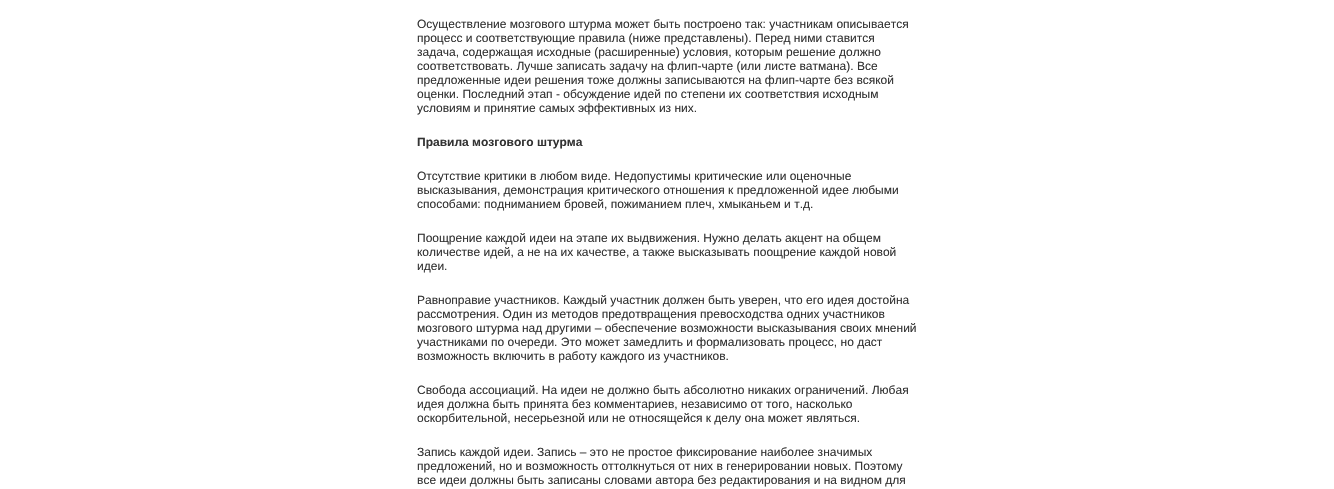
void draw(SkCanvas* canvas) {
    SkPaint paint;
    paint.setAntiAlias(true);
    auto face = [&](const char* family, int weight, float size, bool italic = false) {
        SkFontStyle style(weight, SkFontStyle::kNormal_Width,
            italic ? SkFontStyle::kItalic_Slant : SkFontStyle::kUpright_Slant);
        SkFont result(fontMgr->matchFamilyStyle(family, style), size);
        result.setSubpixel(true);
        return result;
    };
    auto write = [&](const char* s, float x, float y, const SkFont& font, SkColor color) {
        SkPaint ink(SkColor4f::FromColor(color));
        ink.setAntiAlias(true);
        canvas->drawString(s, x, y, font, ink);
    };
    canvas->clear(SK_ColorWHITE);
    auto kFont1 = face("Liberation Sans", 400, 12);
    write("Осуществление мозгового штурма может быть построено так: участникам описывается", 417, 28, kFont1, SkColorSetRGB(51, 51, 51));
    write("процесс и соответствующие правила (ниже представлены). Перед ними ставится", 417, 42, kFont1, SkColorSetRGB(51, 51, 51));
    write("задача, содержащая исходные (расширенные) условия, которым решение должно", 417, 56, kFont1, SkColorSetRGB(51, 51, 51));
    write("соответствовать. Лучше записать задачу на флип-чарте (или листе ватмана). Все", 417, 70, kFont1, SkColorSetRGB(51, 51, 51));
    write("предложенные идеи решения тоже должны записываются на флип-чарте без всякой", 417, 84, kFont1, SkColorSetRGB(51, 51, 51));
    write("оценки. Последний этап - обсуждение идей по степени их соответствия исходным", 417, 98, kFont1, SkColorSetRGB(51, 51, 51));
    write("условиям и принятие самых эффективных из них.", 417, 112, kFont1, SkColorSetRGB(51, 51, 51));
    auto kFont2 = face("Liberation Sans", 700, 12);
    write("Правила мозгового штурма", 417, 146, kFont2, SkColorSetRGB(51, 51, 51));
    write("Отсутствие критики в любом виде. Недопустимы критические или оценочные", 417, 180, kFont1, SkColorSetRGB(51, 51, 51));
    write("высказывания, демонстрация критического отношения к предложенной идее любыми", 417, 194, kFont1, SkColorSetRGB(51, 51, 51));
    write("способами: подниманием бровей, пожиманием плеч, хмыканьем и т.д.", 417, 208, kFont1, SkColorSetRGB(51, 51, 51));
    write("Поощрение каждой идеи на этапе их выдвижения. Нужно делать акцент на общем", 417, 242, kFont1, SkColorSetRGB(51, 51, 51));
    write("количестве идей, а не на их качестве, а также высказывать поощрение каждой новой", 417, 256, kFont1, SkColorSetRGB(51, 51, 51));
    write("идеи.", 417, 270, kFont1, SkColorSetRGB(51, 51, 51));
    write("Равноправие участников. Каждый участник должен быть уверен, что его идея достойна", 417, 304, kFont1, SkColorSetRGB(51, 51, 51));
    write("рассмотрения. Один из методов предотвращения превосходства одних участников", 417, 318, kFont1, SkColorSetRGB(51, 51, 51));
    write("мозгового штурма над другими – обеспечение возможности высказывания своих мнений", 417, 332, kFont1, SkColorSetRGB(51, 51, 51));
    write("участниками по очереди. Это может замедлить и формализовать процесс, но даст", 417, 346, kFont1, SkColorSetRGB(51, 51, 51));
    write("возможность включить в работу каждого из участников.", 417, 360, kFont1, SkColorSetRGB(51, 51, 51));
    write("Свобода ассоциаций. На идеи не должно быть абсолютно никаких ограничений. Любая", 417, 394, kFont1, SkColorSetRGB(51, 51, 51));
    write("идея должна быть принята без комментариев, независимо от того, насколько", 417, 408, kFont1, SkColorSetRGB(51, 51, 51));
    write("оскорбительной, несерьезной или не относящейся к делу она может являться.", 417, 422, kFont1, SkColorSetRGB(51, 51, 51));
    write("Запись каждой идеи. Запись – это не простое фиксирование наиболее значимых", 417, 456, kFont1, SkColorSetRGB(51, 51, 51));
    write("предложений, но и возможность оттолкнуться от них в генерировании новых. Поэтому", 417, 470, kFont1, SkColorSetRGB(51, 51, 51));
    write("все идеи должны быть записаны словами автора без редактирования и на видном для", 417, 484, kFont1, SkColorSetRGB(51, 51, 51));
}
